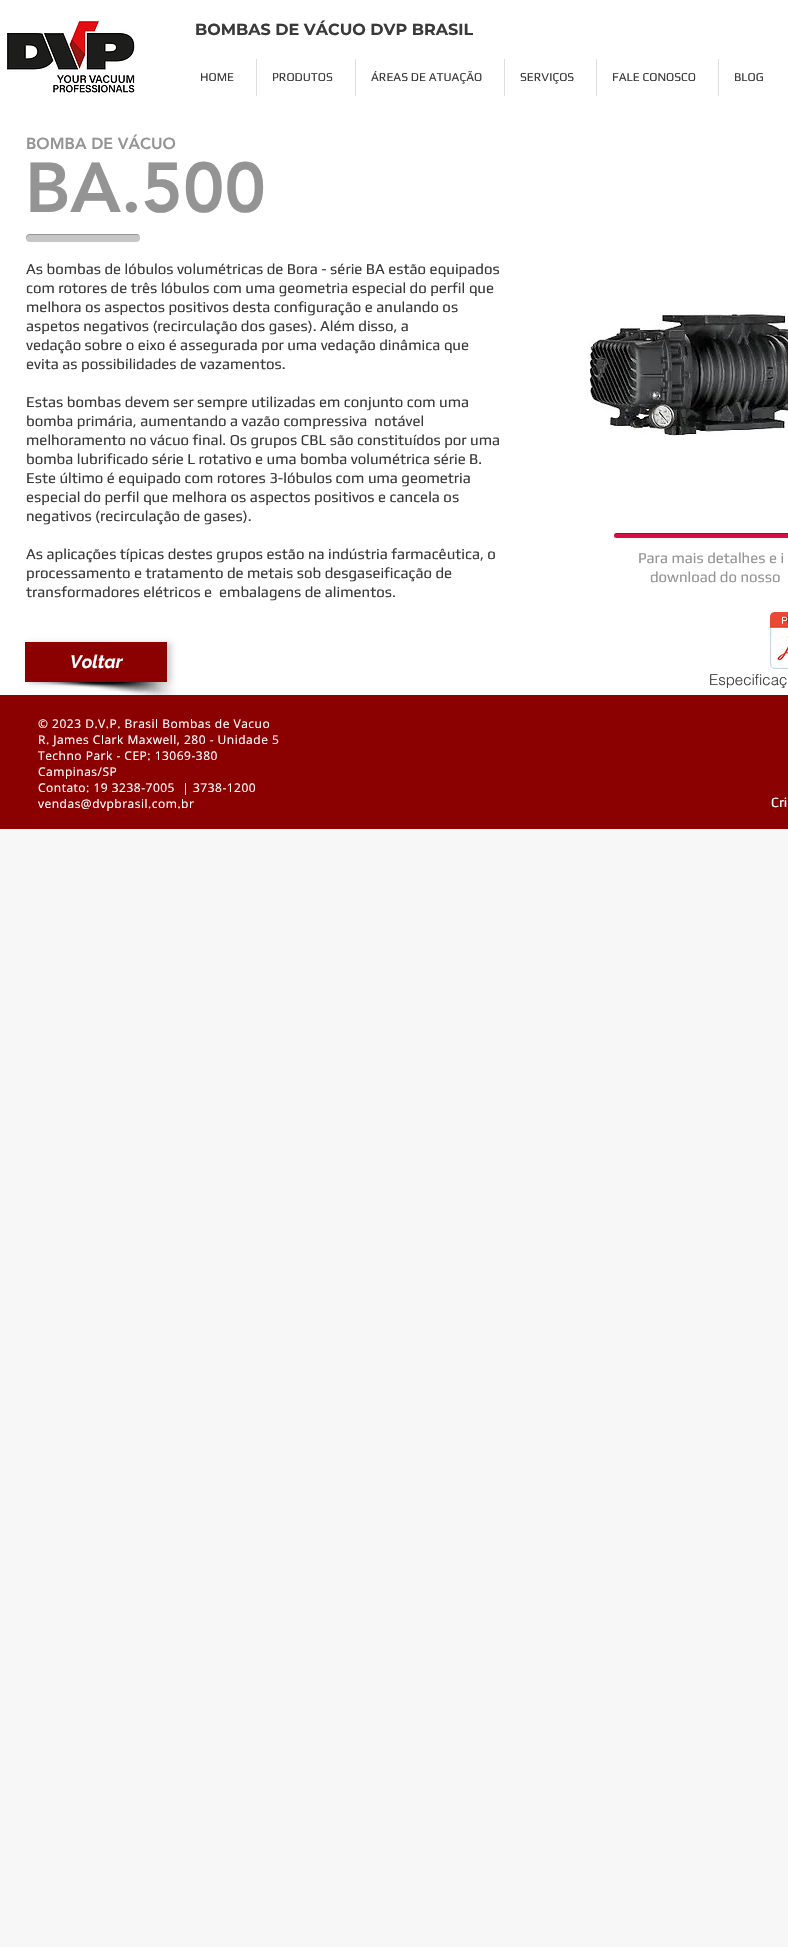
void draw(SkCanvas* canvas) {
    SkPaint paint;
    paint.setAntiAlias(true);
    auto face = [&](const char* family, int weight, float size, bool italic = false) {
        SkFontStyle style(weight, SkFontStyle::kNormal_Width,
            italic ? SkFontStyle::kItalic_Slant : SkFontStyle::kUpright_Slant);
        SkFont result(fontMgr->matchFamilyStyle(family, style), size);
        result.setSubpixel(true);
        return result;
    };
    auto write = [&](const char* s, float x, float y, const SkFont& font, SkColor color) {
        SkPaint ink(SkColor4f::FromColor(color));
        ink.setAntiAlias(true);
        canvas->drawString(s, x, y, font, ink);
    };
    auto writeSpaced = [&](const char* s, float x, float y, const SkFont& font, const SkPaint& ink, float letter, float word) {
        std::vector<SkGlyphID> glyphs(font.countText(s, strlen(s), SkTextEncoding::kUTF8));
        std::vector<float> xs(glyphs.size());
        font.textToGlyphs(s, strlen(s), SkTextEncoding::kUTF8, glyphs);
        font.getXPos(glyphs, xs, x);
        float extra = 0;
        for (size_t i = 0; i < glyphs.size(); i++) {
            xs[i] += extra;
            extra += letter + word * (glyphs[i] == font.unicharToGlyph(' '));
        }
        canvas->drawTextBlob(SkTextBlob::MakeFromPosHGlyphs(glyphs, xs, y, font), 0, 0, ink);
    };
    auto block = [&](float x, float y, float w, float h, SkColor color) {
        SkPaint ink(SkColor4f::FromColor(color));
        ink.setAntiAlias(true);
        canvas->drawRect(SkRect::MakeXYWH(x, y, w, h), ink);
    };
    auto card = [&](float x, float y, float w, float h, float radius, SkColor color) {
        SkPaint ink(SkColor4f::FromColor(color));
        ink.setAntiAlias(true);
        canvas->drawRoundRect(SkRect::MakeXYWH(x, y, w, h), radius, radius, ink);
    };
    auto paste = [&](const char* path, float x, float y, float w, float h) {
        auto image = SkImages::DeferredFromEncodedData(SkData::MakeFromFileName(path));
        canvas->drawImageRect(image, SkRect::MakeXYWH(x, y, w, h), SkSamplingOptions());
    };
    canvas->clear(SkColorSetRGB(247, 247, 247));
    block(0, 0, 788, 695, SK_ColorWHITE);
    paste("pic1.png", 7, 21, 128, 74);
    auto kFont1 = face("Montserrat", 700, 16);
    write("BOMBAS DE VÁCUO DVP BRASIL", 195, 35, kFont1, SkColorSetRGB(59, 58, 58));
    auto kFont2 = face("Play", 400, 12);
    write("HOME", 200, 81, kFont2, SkColorSetRGB(59, 58, 58));
    block(256, 59, 1, 37, SkColorSetRGB(222, 222, 222));
    write("PRODUTOS", 272, 81, kFont2, SkColorSetRGB(59, 58, 58));
    block(355, 59, 1, 37, SkColorSetRGB(222, 222, 222));
    write("ÁREAS DE ATUAÇÃO", 371, 81, kFont2, SkColorSetRGB(59, 58, 58));
    block(504, 59, 1, 37, SkColorSetRGB(222, 222, 222));
    write("SERVIÇOS", 520, 81, kFont2, SkColorSetRGB(59, 58, 58));
    block(596, 59, 1, 37, SkColorSetRGB(222, 222, 222));
    write("FALE CONOSCO", 612, 81, kFont2, SkColorSetRGB(59, 58, 58));
    block(718, 59, 1, 37, SkColorSetRGB(222, 222, 222));
    write("BLOG", 734, 81, kFont2, SkColorSetRGB(59, 58, 58));
    auto kFont3 = face("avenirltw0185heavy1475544", 900, 16);
    write("BOMBA DE VÁCUO", 26, 149, kFont3, SkColorSetRGB(148, 148, 148));
    auto kFont4 = face("avenirltw0185heavy1475544", 900, 70);
    write("BA.500", 25, 212, kFont4, SkColorSetRGB(148, 148, 148));
    card(26, 234, 114, 8, 4, SkColorSetRGB(198, 198, 198));
    paint.setColor(SkColorSetARGB(64, 0, 0, 0));
    canvas->drawPath(SkPathBuilder().moveTo(30, 235).lineTo(138, 235).cubicTo(139, 236, 140, 237, 140, 238).cubicTo(140, 237, 139, 235, 138, 234).lineTo(29, 234).cubicTo(27, 235, 25, 237, 26, 239).cubicTo(26, 237, 28, 235, 30, 235).close().detach(), paint);
    auto kFont5 = face("Play", 400, 15);
    write("As bombas de lóbulos volumétricas de Bora - série BA estão equipados", 26, 274, kFont5, SkColorSetRGB(59, 58, 58));
    write("com rotores de três lóbulos com uma geometria especial do perfil que", 26, 293, kFont5, SkColorSetRGB(59, 58, 58));
    write("melhora os aspectos positivos desta configuração e anulando os", 26, 312, kFont5, SkColorSetRGB(59, 58, 58));
    write("aspetos negativos (recirculação dos gases). Além disso, a", 26, 331, kFont5, SkColorSetRGB(59, 58, 58));
    write("vedação sobre o eixo é assegurada por uma vedação dinâmica que", 26, 350, kFont5, SkColorSetRGB(59, 58, 58));
    write("evita as possibilidades de vazamentos.", 26, 369, kFont5, SkColorSetRGB(59, 58, 58));
    write("Estas bombas devem ser sempre utilizadas em conjunto com uma", 26, 407, kFont5, SkColorSetRGB(59, 58, 58));
    write("bomba primária, aumentando a vazão compressiva  notável", 26, 426, kFont5, SkColorSetRGB(59, 58, 58));
    write("melhoramento no vácuo final. Os grupos CBL são constituídos por uma", 26, 445, kFont5, SkColorSetRGB(59, 58, 58));
    write("bomba lubrificado série L rotativo e uma bomba volumétrica série B.", 26, 464, kFont5, SkColorSetRGB(59, 58, 58));
    write("Este último é equipado com rotores 3-lóbulos com uma geometria", 26, 483, kFont5, SkColorSetRGB(59, 58, 58));
    write("especial do perfil que melhora os aspectos positivos e cancela os", 26, 502, kFont5, SkColorSetRGB(59, 58, 58));
    write("negativos (recirculação de gases).", 26, 521, kFont5, SkColorSetRGB(59, 58, 58));
    write("As aplicações típicas destes grupos estão na indústria farmacêutica, o", 26, 559, kFont5, SkColorSetRGB(59, 58, 58));
    write("processamento e tratamento de metais sob desgaseificação de", 26, 578, kFont5, SkColorSetRGB(59, 58, 58));
    write("transformadores elétricos e  embalagens de alimentos.", 26, 597, kFont5, SkColorSetRGB(59, 58, 58));
    paste("pic2.png", 590, 312, 198, 124);
    card(614, 533, 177, 5, 2.5f, SkColorSetRGB(214, 16, 67));
    canvas->drawPath(SkPathBuilder().moveTo(616, 534).lineTo(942, 534).cubicTo(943, 534, 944, 535, 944, 536).cubicTo(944, 535, 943, 533, 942, 533).lineTo(616, 533).cubicTo(615, 533, 614, 535, 614, 536).cubicTo(614, 535, 615, 534, 616, 534).close().detach(), paint);
    write("Para mais detalhes e i", 638, 563, kFont5, SkColorSetRGB(148, 148, 148));
    write("download do nosso", 650, 582, kFont5, SkColorSetRGB(148, 148, 148));
    paste("pic3.png", 22, 682, 154, 13);
    paint.setColor(SkColorSetARGB(51, 0, 0, 0));
    paint.setMaskFilter(SkMaskFilter::MakeBlur(kNormal_SkBlurStyle, 3));
    canvas->drawRect(SkRect::MakeXYWH(29, 643, 142, 40), paint);
    paint.setMaskFilter(nullptr);
    block(25, 642, 142, 40, SkColorSetRGB(139, 0, 0));
    auto kFont6 = face("Raleway", 700, 18, true);
    write("Voltar", 70, 668, kFont6, SK_ColorWHITE);
    paste("pic4.png", 770, 612, 18, 57);
    auto kFont7 = face("helvetica", 300, 15);
    write("Especificaç", 709, 685, kFont7, SkColorSetRGB(59, 58, 58));
    block(0, 695, 788, 134, SkColorSetRGB(139, 0, 0));
    auto kFont8 = face("Open Sans", 400, 12);
    paint.setColor(SK_ColorWHITE);
    writeSpaced("© 2023 D.V.P. Brasil Bombas de Vacuo", 38, 728, kFont8, paint, 0.5f, 0);
    writeSpaced("R. James Clark Maxwell, 280 - Unidade 5", 38, 744, kFont8, paint, 0.5f, 0);
    writeSpaced("Techno Park - CEP: 13069-380", 38, 760, kFont8, paint, 0.5f, 0);
    writeSpaced("Campinas/SP", 38, 776, kFont8, paint, 0.5f, 0);
    writeSpaced("Contato: 19 3238-7005  | 3738-1200", 38, 792, kFont8, paint, 0.5f, 0);
    writeSpaced("vendas@dvpbrasil.com.br", 38, 808, kFont8, paint, 0.5f, 0);
    auto kFont9 = face("Play", 400, 14);
    write("Cri", 771, 807, kFont9, SK_ColorWHITE);
}
